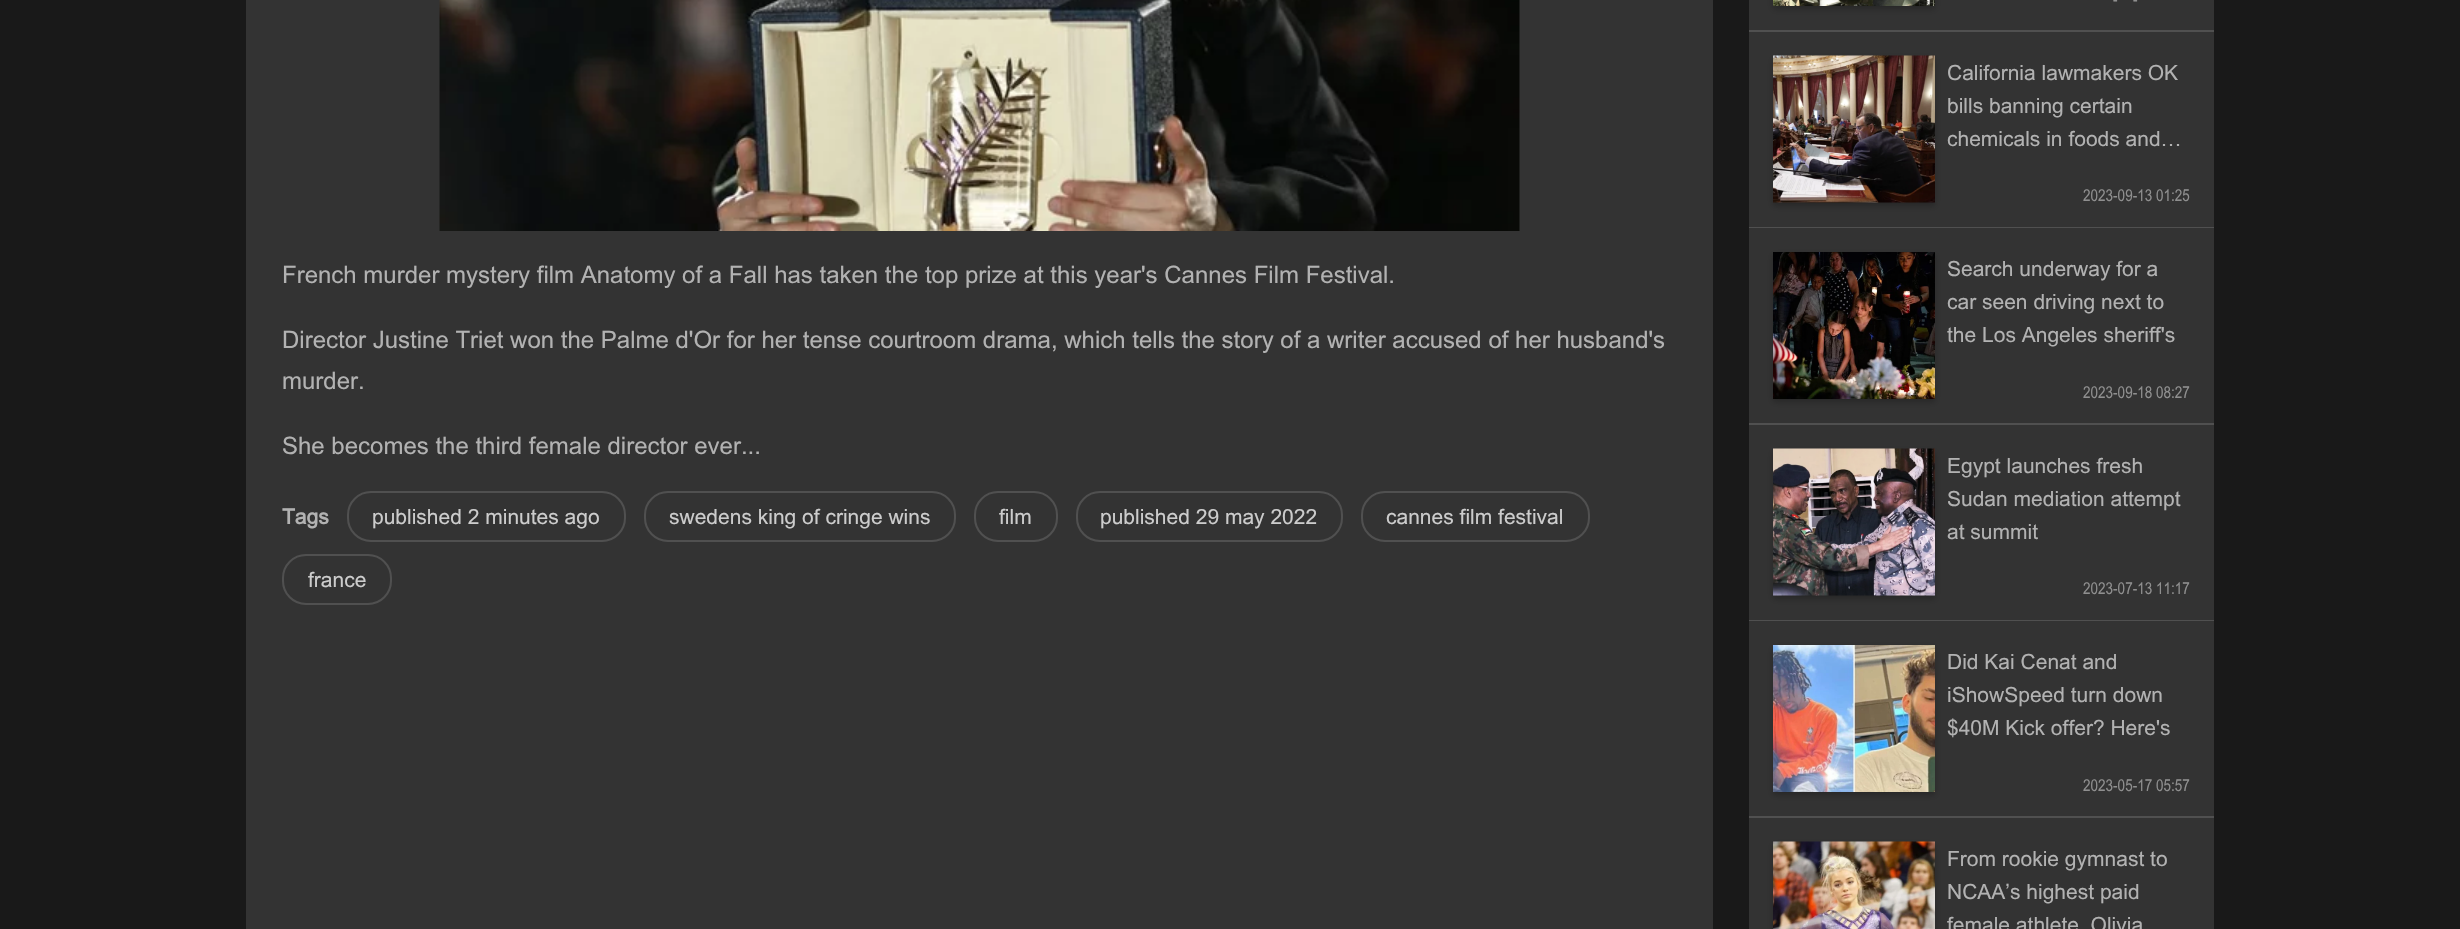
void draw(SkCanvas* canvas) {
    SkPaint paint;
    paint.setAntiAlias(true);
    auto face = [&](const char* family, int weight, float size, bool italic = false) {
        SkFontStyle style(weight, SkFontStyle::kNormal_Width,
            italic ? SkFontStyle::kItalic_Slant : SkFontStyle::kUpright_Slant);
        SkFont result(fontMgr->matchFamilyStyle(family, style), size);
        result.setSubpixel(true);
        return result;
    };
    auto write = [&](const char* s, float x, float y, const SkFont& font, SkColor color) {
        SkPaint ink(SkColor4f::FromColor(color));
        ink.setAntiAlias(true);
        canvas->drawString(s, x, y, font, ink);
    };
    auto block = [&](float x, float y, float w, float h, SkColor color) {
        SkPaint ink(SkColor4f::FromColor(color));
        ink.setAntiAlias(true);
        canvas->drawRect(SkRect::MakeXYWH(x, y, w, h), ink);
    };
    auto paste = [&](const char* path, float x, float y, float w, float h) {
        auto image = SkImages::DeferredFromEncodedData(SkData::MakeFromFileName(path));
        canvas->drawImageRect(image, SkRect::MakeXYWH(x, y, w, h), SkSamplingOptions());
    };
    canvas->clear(SkColorSetRGB(25, 25, 25));
    block(246, 0, 1467, 929, SkColorSetRGB(51, 51, 51));
    paste("pic1.png", 439, 0, 1081, 231);
    auto kFont1 = face("Arial", 400, 24);
    write("French murder mystery film Anatomy of a Fall has taken the top prize at this year's Cannes Film Festival.", 282, 283, kFont1, SkColorSetRGB(178, 178, 178));
    write("Director Justine Triet won the Palme d'Or for her tense courtroom drama, which tells the story of a writer accused of her husband's", 282, 348, kFont1, SkColorSetRGB(178, 178, 178));
    write("murder.", 282, 389, kFont1, SkColorSetRGB(178, 178, 178));
    write("She becomes the third female director ever...", 282, 454, kFont1, SkColorSetRGB(178, 178, 178));
    auto kFont2 = face("Arial", 700, 21);
    write("Tags", 282, 524, kFont2, SkColorSetRGB(178, 178, 178));
    paint.setStyle(SkPaint::kStroke_Style);
    paint.setStrokeWidth(2);
    paint.setColor(SkColorSetRGB(80, 80, 80));
    canvas->drawRoundRect(SkRect::MakeXYWH(348, 492, 277, 49), 23, 23, paint);
    auto kFont3 = face("Arial", 400, 21);
    write("published 2 minutes ago", 372, 524, kFont3, SkColorSetRGB(204, 204, 204));
    canvas->drawRoundRect(SkRect::MakeXYWH(645, 492, 310, 49), 23, 23, paint);
    write("swedens king of cringe wins", 669, 524, kFont3, SkColorSetRGB(204, 204, 204));
    canvas->drawRoundRect(SkRect::MakeXYWH(975, 492, 82, 49), 23, 23, paint);
    write("film", 999, 524, kFont3, SkColorSetRGB(204, 204, 204));
    canvas->drawRoundRect(SkRect::MakeXYWH(1077, 492, 265, 49), 23, 23, paint);
    write("published 29 may 2022", 1100, 524, kFont3, SkColorSetRGB(204, 204, 204));
    canvas->drawRoundRect(SkRect::MakeXYWH(1362, 492, 227, 49), 23, 23, paint);
    write("cannes film festival", 1386, 524, kFont3, SkColorSetRGB(204, 204, 204));
    canvas->drawRoundRect(SkRect::MakeXYWH(283, 555, 108, 49), 23, 23, paint);
    write("france", 308, 587, kFont3, SkColorSetRGB(204, 204, 204));
    block(1749, 0, 465, 30, SkColorSetRGB(51, 51, 51));
    block(1749, 30, 465, 2, SkColorSetRGB(80, 80, 80));
    paint.setStyle(SkPaint::kFill_Style);
    paint.setColor(SkColorSetARGB(61, 0, 0, 0));
    paint.setMaskFilter(SkMaskFilter::MakeBlur(kNormal_SkBlurStyle, 3));
    canvas->drawRect(SkRect::MakeXYWH(1773, -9, 162, 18), paint);
    paint.setMaskFilter(nullptr);
    paste("pic2.png", 1773, 0, 162, 6);
    auto kFont4 = face("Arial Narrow", 400, 16.5f);
    write("-", 2113, 5, kFont4, SkColorSetRGB(143, 143, 143));
    write("-", 2133, 5, kFont4, SkColorSetRGB(143, 143, 143));
    block(1749, 32, 465, 195, SkColorSetRGB(51, 51, 51));
    block(1749, 227, 465, 1, SkColorSetRGB(80, 80, 80));
    paint.setMaskFilter(SkMaskFilter::MakeBlur(kNormal_SkBlurStyle, 3));
    canvas->drawRect(SkRect::MakeXYWH(1773, 59, 162, 147), paint);
    paint.setMaskFilter(nullptr);
    paste("pic3.png", 1773, 55, 162, 148);
    write("California lawmakers OK", 1947, 80, kFont3, SkColorSetRGB(178, 178, 178));
    write("bills banning certain", 1947, 113, kFont3, SkColorSetRGB(178, 178, 178));
    write("chemicals in foods and…", 1947, 146, kFont3, SkColorSetRGB(178, 178, 178));
    write("2023-09-13 01:25", 2083, 201, kFont4, SkColorSetRGB(143, 143, 143));
    block(1749, 228, 465, 195, SkColorSetRGB(51, 51, 51));
    block(1749, 423, 465, 2, SkColorSetRGB(80, 80, 80));
    paint.setMaskFilter(SkMaskFilter::MakeBlur(kNormal_SkBlurStyle, 3));
    canvas->drawRect(SkRect::MakeXYWH(1773, 255, 162, 147), paint);
    paint.setMaskFilter(nullptr);
    paste("pic4.png", 1773, 252, 162, 147);
    write("Search underway for a", 1947, 276, kFont3, SkColorSetRGB(178, 178, 178));
    write("car seen driving next to", 1947, 309, kFont3, SkColorSetRGB(178, 178, 178));
    write("the Los Angeles sheriff's", 1947, 342, kFont3, SkColorSetRGB(178, 178, 178));
    write("2023-09-18 08:27", 2083, 398, kFont4, SkColorSetRGB(143, 143, 143));
    block(1749, 425, 465, 195, SkColorSetRGB(51, 51, 51));
    block(1749, 620, 465, 1, SkColorSetRGB(80, 80, 80));
    paint.setMaskFilter(SkMaskFilter::MakeBlur(kNormal_SkBlurStyle, 3));
    canvas->drawRect(SkRect::MakeXYWH(1773, 452, 162, 147), paint);
    paint.setMaskFilter(nullptr);
    paste("pic5.png", 1773, 448, 162, 148);
    write("Egypt launches fresh", 1947, 473, kFont3, SkColorSetRGB(178, 178, 178));
    write("Sudan mediation attempt", 1947, 506, kFont3, SkColorSetRGB(178, 178, 178));
    write("at summit", 1947, 539, kFont3, SkColorSetRGB(178, 178, 178));
    write("2023-07-13 11:17", 2083, 594, kFont4, SkColorSetRGB(143, 143, 143));
    block(1749, 621, 465, 195, SkColorSetRGB(51, 51, 51));
    block(1749, 816, 465, 2, SkColorSetRGB(80, 80, 80));
    paint.setMaskFilter(SkMaskFilter::MakeBlur(kNormal_SkBlurStyle, 3));
    canvas->drawRect(SkRect::MakeXYWH(1773, 648, 162, 147), paint);
    paint.setMaskFilter(nullptr);
    paste("pic6.png", 1773, 645, 162, 147);
    write("Did Kai Cenat and", 1947, 669, kFont3, SkColorSetRGB(178, 178, 178));
    write("iShowSpeed turn down", 1947, 702, kFont3, SkColorSetRGB(178, 178, 178));
    write("$40M Kick offer? Here's", 1947, 735, kFont3, SkColorSetRGB(178, 178, 178));
    write("2023-05-17 05:57", 2083, 791, kFont4, SkColorSetRGB(143, 143, 143));
    block(1749, 818, 465, 111, SkColorSetRGB(51, 51, 51));
    paint.setMaskFilter(SkMaskFilter::MakeBlur(kNormal_SkBlurStyle, 3));
    canvas->drawRect(SkRect::MakeXYWH(1773, 845, 162, 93), paint);
    paint.setMaskFilter(nullptr);
    paste("pic7.png", 1773, 841, 162, 88);
    write("From rookie gymnast to", 1947, 866, kFont3, SkColorSetRGB(178, 178, 178));
    write("NCAA’s highest paid", 1947, 899, kFont3, SkColorSetRGB(178, 178, 178));
    write("female athlete, Olivia", 1947, 932, kFont3, SkColorSetRGB(178, 178, 178));
}
